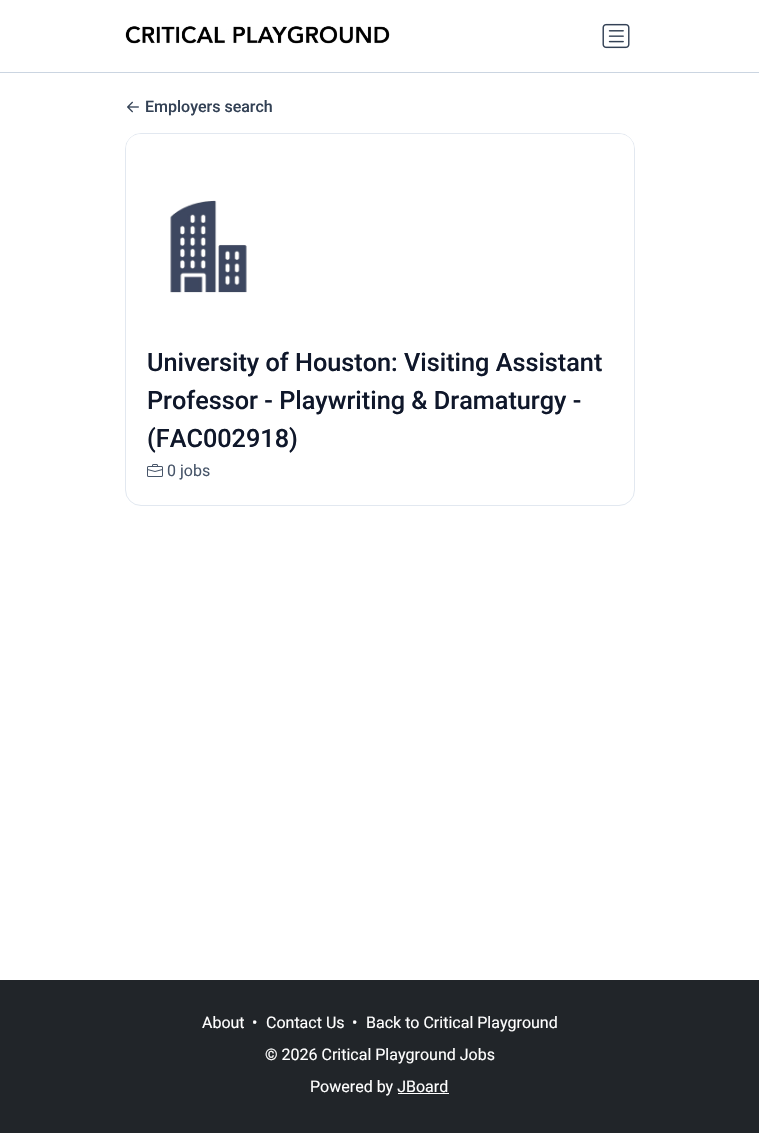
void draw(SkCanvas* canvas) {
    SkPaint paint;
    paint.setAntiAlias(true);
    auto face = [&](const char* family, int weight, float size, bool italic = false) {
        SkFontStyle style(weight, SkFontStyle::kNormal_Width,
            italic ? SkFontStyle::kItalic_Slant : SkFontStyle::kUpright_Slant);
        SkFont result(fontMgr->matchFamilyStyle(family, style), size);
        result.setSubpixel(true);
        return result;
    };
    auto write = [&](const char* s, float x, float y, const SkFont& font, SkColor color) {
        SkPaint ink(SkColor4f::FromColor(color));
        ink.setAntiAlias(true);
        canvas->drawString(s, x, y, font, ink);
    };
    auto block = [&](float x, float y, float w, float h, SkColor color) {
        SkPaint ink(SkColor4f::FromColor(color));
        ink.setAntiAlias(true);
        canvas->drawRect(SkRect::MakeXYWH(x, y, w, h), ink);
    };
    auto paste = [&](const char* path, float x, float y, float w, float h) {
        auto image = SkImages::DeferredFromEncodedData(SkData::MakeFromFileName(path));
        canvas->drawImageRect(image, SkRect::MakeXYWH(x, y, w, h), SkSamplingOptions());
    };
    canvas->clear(SK_ColorWHITE);
    block(0, 72, 759, 1, SkColorSetRGB(203, 213, 225));
    paste("pic1.png", 125, 26, 265, 18);
    paste("pic2.png", 602, 23, 28, 26);
    paste("pic3.png", 127, 101, 12, 12);
    auto kFont1 = face("Roboto", 500, 16);
    write("Employers search", 145, 112, kFont1, SkColorSetRGB(51, 65, 85));
    paint.setStyle(SkPaint::kStroke_Style);
    paint.setStrokeWidth(1);
    paint.setColor(SkColorSetRGB(226, 232, 240));
    canvas->drawRoundRect(SkRect::MakeXYWH(125.5f, 133.5f, 509, 372), 15.5f, 15.5f, paint);
    paint.setStyle(SkPaint::kFill_Style);
    paint.setColor(SK_ColorWHITE);
    canvas->drawPath(SkPathBuilder().moveTo(141, 134).lineTo(619, 134).cubicTo(627.5f, 134, 634, 140.5f, 634, 149).lineTo(634, 284).lineTo(126, 284).lineTo(126, 149).cubicTo(126, 140.5f, 132.5f, 134, 141, 134).close().detach(), paint);
    paste("pic4.png", 170, 200, 77, 93);
    auto kFont2 = face("Roboto", 500, 25.25f);
    write("University of Houston: Visiting Assistant", 147, 371, kFont2, SkColorSetRGB(15, 23, 42));
    write("Professor - Playwriting & Dramaturgy -", 147, 409, kFont2, SkColorSetRGB(15, 23, 42));
    write("(FAC002918)", 147, 447, kFont2, SkColorSetRGB(15, 23, 42));
    paste("pic5.png", 147, 464, 16, 13);
    auto kFont3 = face("Roboto", 400, 16);
    write("0 jobs", 167, 476, kFont3, SkColorSetRGB(71, 85, 105));
    block(0, 980, 759, 153, SkColorSetRGB(33, 37, 41));
    write("About", 202, 1028, kFont3, SK_ColorWHITE);
    write("•", 252, 1028, kFont3, SK_ColorWHITE);
    write("Contact Us", 266, 1028, kFont3, SK_ColorWHITE);
    write("•", 352, 1028, kFont3, SK_ColorWHITE);
    write("Back to Critical Playground", 366, 1028, kFont3, SK_ColorWHITE);
    write("© 2026 Critical Playground Jobs", 265, 1060, kFont3, SK_ColorWHITE);
    write("Powered by JBoard", 310, 1092, kFont3, SK_ColorWHITE);
    block(398, 1093, 51, 1, SK_ColorWHITE);
}
